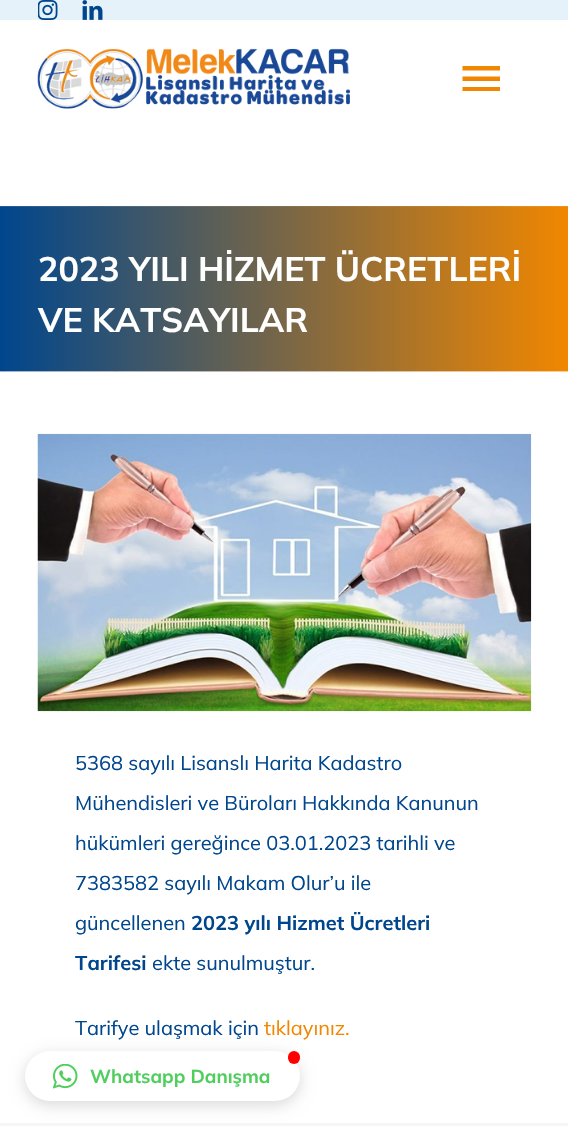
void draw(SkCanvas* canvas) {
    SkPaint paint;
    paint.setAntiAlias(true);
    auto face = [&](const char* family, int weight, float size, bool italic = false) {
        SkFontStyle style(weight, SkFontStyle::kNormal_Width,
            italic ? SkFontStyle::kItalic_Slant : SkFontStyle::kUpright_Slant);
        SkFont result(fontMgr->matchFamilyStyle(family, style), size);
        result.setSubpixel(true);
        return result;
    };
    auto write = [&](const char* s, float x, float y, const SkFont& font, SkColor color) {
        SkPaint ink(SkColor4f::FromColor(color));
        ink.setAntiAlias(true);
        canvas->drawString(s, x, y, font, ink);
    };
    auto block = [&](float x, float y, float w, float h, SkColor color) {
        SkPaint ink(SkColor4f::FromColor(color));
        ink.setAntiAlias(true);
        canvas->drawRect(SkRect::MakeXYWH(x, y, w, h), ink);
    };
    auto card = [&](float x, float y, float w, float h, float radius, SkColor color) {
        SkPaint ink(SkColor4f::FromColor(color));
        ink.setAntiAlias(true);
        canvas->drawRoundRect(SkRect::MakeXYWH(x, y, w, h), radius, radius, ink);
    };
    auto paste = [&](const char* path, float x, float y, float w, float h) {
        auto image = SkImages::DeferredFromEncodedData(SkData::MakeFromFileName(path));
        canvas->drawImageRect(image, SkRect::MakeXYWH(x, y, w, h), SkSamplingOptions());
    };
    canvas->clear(SK_ColorWHITE);
    block(0, 0, 568, 20, SkColorSetRGB(229, 242, 250));
    paste("pic1.png", 38, 0, 20, 20);
    paste("pic2.png", 82, 0, 21, 20);
    paste("pic3.png", 37, 48, 313, 61);
    paint.setColor(SkColorSetRGB(241, 135, 0));
    canvas->drawPath(SkPathBuilder().moveTo(462.5f, 66).lineTo(500, 66).lineTo(500, 70.5f).lineTo(462.5f, 70.5f).close().moveTo(462.5f, 81).lineTo(462.5f, 76.5f).lineTo(500, 76.5f).lineTo(500, 81).close().moveTo(462.5f, 91).lineTo(462.5f, 87).lineTo(500, 87).lineTo(500, 91).close().detach(), paint);
    paste("pic4.png", 0, 206, 568, 166);
    auto kFont1 = face("Mulish", 700, 34);
    write("2023 YILI HİZMET ÜCRETLERİ", 38, 281, kFont1, SK_ColorWHITE);
    write("VE KATSAYILAR", 38, 332, kFont1, SK_ColorWHITE);
    paste("pic5.png", 37, 433, 495, 279);
    auto kFont2 = face("Mulish", 400, 20);
    write("5368 sayılı Lisanslı Harita Kadastro", 75, 770, kFont2, SkColorSetRGB(0, 70, 141));
    write("Mühendisleri ve Büroları Hakkında Kanunun", 75, 810, kFont2, SkColorSetRGB(0, 70, 141));
    write("hükümleri gereğince 03.01.2023 tarihli ve", 75, 850, kFont2, SkColorSetRGB(0, 70, 141));
    write("7383582 sayılı Makam Olur’u ile", 75, 890, kFont2, SkColorSetRGB(0, 70, 141));
    write("güncellenen", 75, 930, kFont2, SkColorSetRGB(0, 70, 141));
    auto kFont3 = face("Mulish", 700, 20);
    write("2023 yılı Hizmet Ücretleri", 191, 930, kFont3, SkColorSetRGB(0, 70, 141));
    write("Tarifesi", 75, 970, kFont3, SkColorSetRGB(0, 70, 141));
    write("ekte sunulmuştur.", 152, 970, kFont2, SkColorSetRGB(0, 70, 141));
    write("Tarifye ulaşmak için", 75, 1035, kFont2, SkColorSetRGB(0, 70, 141));
    write("tıklayınız.", 264, 1035, kFont2, SkColorSetRGB(241, 135, 0));
    block(0, 1123, 568, 3, SkColorSetRGB(246, 246, 246));
    paint.setColor(SkColorSetARGB(38, 0, 0, 0));
    paint.setMaskFilter(SkMaskFilter::MakeBlur(kNormal_SkBlurStyle, 7.5f));
    canvas->drawRoundRect(SkRect::MakeXYWH(25, 1055, 275, 50), 25, 25, paint);
    paint.setMaskFilter(nullptr);
    card(25, 1051, 275, 50, 25, SK_ColorWHITE);
    card(288, 1051, 12, 13, 6, SkColorSetRGB(255, 0, 0));
    paste("pic6.png", 53, 1064, 25, 25);
    auto kFont4 = face("Mulish", 700, 18.75f);
    write("Whatsapp Danışma", 90, 1083, kFont4, SkColorSetRGB(79, 206, 93));
}
